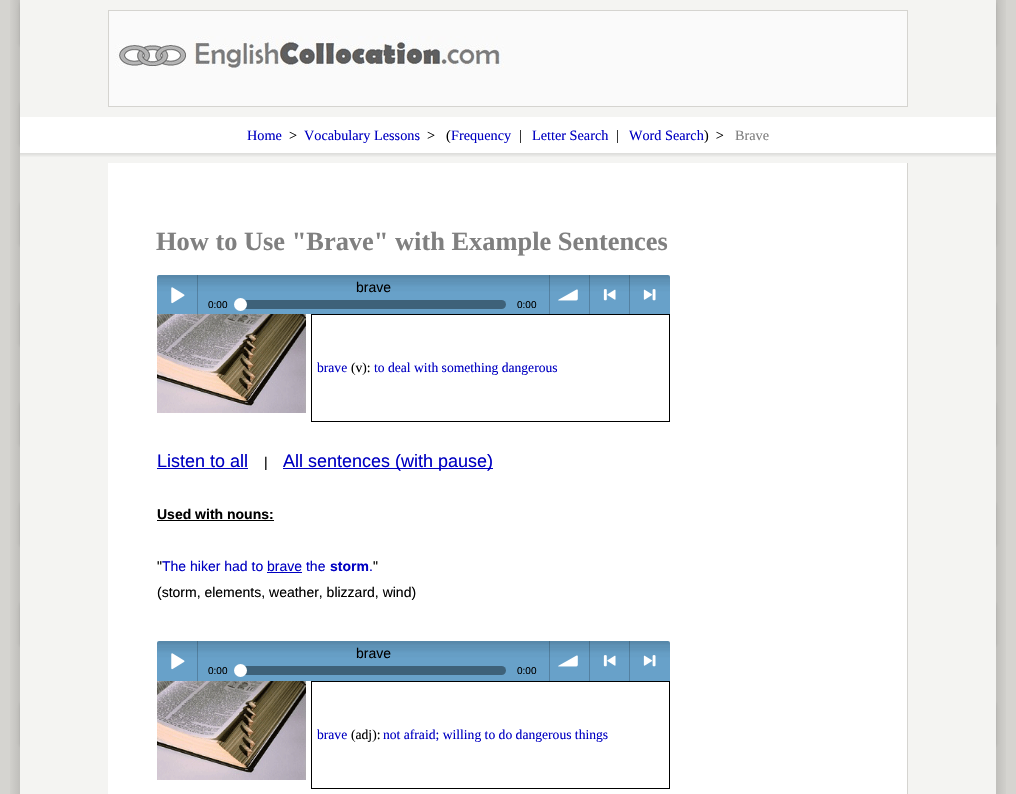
void draw(SkCanvas* canvas) {
    SkPaint paint;
    paint.setAntiAlias(true);
    auto face = [&](const char* family, int weight, float size, bool italic = false) {
        SkFontStyle style(weight, SkFontStyle::kNormal_Width,
            italic ? SkFontStyle::kItalic_Slant : SkFontStyle::kUpright_Slant);
        SkFont result(fontMgr->matchFamilyStyle(family, style), size);
        result.setSubpixel(true);
        return result;
    };
    auto write = [&](const char* s, float x, float y, const SkFont& font, SkColor color) {
        SkPaint ink(SkColor4f::FromColor(color));
        ink.setAntiAlias(true);
        canvas->drawString(s, x, y, font, ink);
    };
    auto block = [&](float x, float y, float w, float h, SkColor color) {
        SkPaint ink(SkColor4f::FromColor(color));
        ink.setAntiAlias(true);
        canvas->drawRect(SkRect::MakeXYWH(x, y, w, h), ink);
    };
    auto card = [&](float x, float y, float w, float h, float radius, SkColor color) {
        SkPaint ink(SkColor4f::FromColor(color));
        ink.setAntiAlias(true);
        canvas->drawRoundRect(SkRect::MakeXYWH(x, y, w, h), radius, radius, ink);
    };
    auto paste = [&](const char* path, float x, float y, float w, float h) {
        auto image = SkImages::DeferredFromEncodedData(SkData::MakeFromFileName(path));
        canvas->drawImageRect(image, SkRect::MakeXYWH(x, y, w, h), SkSamplingOptions());
    };
    canvas->clear(SkColorSetRGB(213, 212, 208));
    paste("pic1.png", 10, 0, 10, 794);
    block(20, 0, 976, 117, SkColorSetRGB(244, 244, 242));
    paint.setColor(SkColorSetRGB(250, 250, 250));
    canvas->drawRect(SkRect::MakeXYWH(108.5f, 10.5f, 799, 96), paint);
    paint.setStyle(SkPaint::kStroke_Style);
    paint.setStrokeWidth(1);
    paint.setColor(SkColorSetRGB(213, 212, 208));
    canvas->drawRect(SkRect::MakeXYWH(108.5f, 10.5f, 799, 96), paint);
    paste("pic2.png", 115, 36, 389, 32);
    block(20, 117, 976, 36, SK_ColorWHITE);
    auto kFont1 = face("Liberation Serif", 400, 14.25f);
    write("Home", 247, 140, kFont1, SkColorSetRGB(0, 0, 194));
    write(">", 289, 140, kFont1, SK_ColorBLACK);
    write("Vocabulary Lessons", 304, 140, kFont1, SkColorSetRGB(0, 0, 194));
    write(">", 427, 140, kFont1, SK_ColorBLACK);
    write("(", 446, 140, kFont1, SK_ColorBLACK);
    write("Frequency", 451, 140, kFont1, SkColorSetRGB(0, 0, 194));
    write("|", 519, 140, kFont1, SK_ColorBLACK);
    write("Letter Search", 532, 140, kFont1, SkColorSetRGB(0, 0, 194));
    write("|", 616, 140, kFont1, SK_ColorBLACK);
    write("Word Search", 629, 140, kFont1, SkColorSetRGB(0, 0, 194));
    write(")  >", 704, 140, kFont1, SK_ColorBLACK);
    write("Brave", 735, 140, kFont1, SkColorSetRGB(128, 128, 128));
    block(20, 157, 976, 637, SkColorSetRGB(244, 244, 242));
    paste("pic3.png", 20, 153, 976, 4);
    block(108, 163, 799, 631, SK_ColorWHITE);
    block(907, 163, 1, 631, SkColorSetRGB(213, 212, 208));
    auto kFont2 = face("Liberation Serif", 700, 26.4f);
    write("How to Use \"Brave\" with Example Sentences", 156, 250, kFont2, SkColorSetRGB(128, 128, 128));
    paste("pic4.png", 157, 275, 513, 39);
    paste("pic9.png", 157, 314, 152, 99);
    block(197, 275, 1, 40, SkColorSetARGB(26, 0, 0, 0));
    paste("pic5.png", 171, 287, 14, 17);
    paint.setColor(SK_ColorBLACK);
    canvas->drawRect(SkRect::MakeXYWH(311.5f, 314.5f, 358, 107), paint);
    block(549, 275, 1, 40, SkColorSetARGB(26, 0, 0, 0));
    auto kFont3 = face("Liberation Sans", 400, 14);
    write("brave", 356, 292, kFont3, SK_ColorBLACK);
    auto kFont4 = face("Liberation Sans", 400, 10);
    write("0:00", 208, 308, kFont4, SK_ColorBLACK);
    card(240, 300, 266, 9, 4.5f, SkColorSetRGB(62, 97, 121));
    paint.setStyle(SkPaint::kFill_Style);
    paint.setColor(SK_ColorWHITE);
    canvas->drawCircle(240.5f, 304.5f, 6.5f, paint);
    write("0:00", 517, 308, kFont4, SK_ColorBLACK);
    block(589, 275, 1, 40, SkColorSetARGB(26, 0, 0, 0));
    paste("pic6.png", 558, 289, 20, 12);
    block(629, 275, 1, 40, SkColorSetARGB(26, 0, 0, 0));
    paste("pic7.png", 603, 289, 13, 12);
    paste("pic8.png", 643, 289, 13, 12);
    auto kFont5 = face("Liberation Serif", 400, 13.6f);
    write("brave", 317, 372, kFont5, SkColorSetRGB(0, 0, 194));
    write("(v):", 351, 372, kFont5, SK_ColorBLACK);
    write("to deal with something dangerous", 374, 372, kFont5, SkColorSetRGB(0, 0, 194));
    auto kFont6 = face("Liberation Sans", 400, 18);
    write("Listen to all", 157, 467, kFont6, SkColorSetRGB(0, 0, 194));
    block(157, 468, 91, 1, SkColorSetRGB(0, 0, 194));
    write("|", 264, 467, kFont3, SK_ColorBLACK);
    block(283, 468, 210, 1, SkColorSetRGB(0, 0, 194));
    write("All sentences (with pause)", 283, 467, kFont6, SkColorSetRGB(0, 0, 194));
    auto kFont7 = face("Liberation Sans", 700, 14);
    write("Used with nouns:", 157, 519, kFont7, SK_ColorBLACK);
    block(157, 520, 117, 1, SK_ColorBLACK);
    write("\"", 157, 571, kFont3, SK_ColorBLACK);
    write("The hiker had to brave the", 162, 571, kFont3, SkColorSetRGB(0, 0, 194));
    block(267, 572, 35, 1, SkColorSetRGB(0, 0, 194));
    write("storm", 330, 571, kFont7, SkColorSetRGB(0, 0, 194));
    write("\"", 373, 571, kFont3, SK_ColorBLACK);
    write(".", 369, 571, kFont3, SkColorSetRGB(0, 0, 194));
    write("(storm, elements, weather, blizzard, wind)", 157, 597, kFont3, SK_ColorBLACK);
    paste("pic10.png", 157, 641, 513, 40);
    block(197, 641, 1, 40, SkColorSetARGB(26, 0, 0, 0));
    paste("pic5.png", 171, 653, 14, 17);
    block(549, 641, 1, 40, SkColorSetARGB(26, 0, 0, 0));
    write("brave", 356, 658, kFont3, SK_ColorBLACK);
    write("0:00", 208, 674, kFont4, SK_ColorBLACK);
    card(240, 666, 266, 9, 4.5f, SkColorSetRGB(62, 97, 121));
    canvas->drawCircle(240.5f, 670.5f, 6.5f, paint);
    write("0:00", 517, 674, kFont4, SK_ColorBLACK);
    block(589, 641, 1, 40, SkColorSetARGB(26, 0, 0, 0));
    paste("pic6.png", 558, 655, 20, 12);
    block(629, 641, 1, 40, SkColorSetARGB(26, 0, 0, 0));
    paste("pic7.png", 603, 655, 13, 12);
    paste("pic8.png", 643, 655, 13, 12);
    paste("pic11.png", 157, 681, 152, 99);
    paint.setStyle(SkPaint::kStroke_Style);
    paint.setColor(SK_ColorBLACK);
    canvas->drawRect(SkRect::MakeXYWH(311.5f, 681.5f, 358, 107), paint);
    write("brave", 317, 739, kFont5, SkColorSetRGB(0, 0, 194));
    write("(adj):", 351, 739, kFont5, SK_ColorBLACK);
    write("not afraid; willing to do dangerous things", 383, 739, kFont5, SkColorSetRGB(0, 0, 194));
    paste("pic12.png", 996, 0, 10, 794);
}
